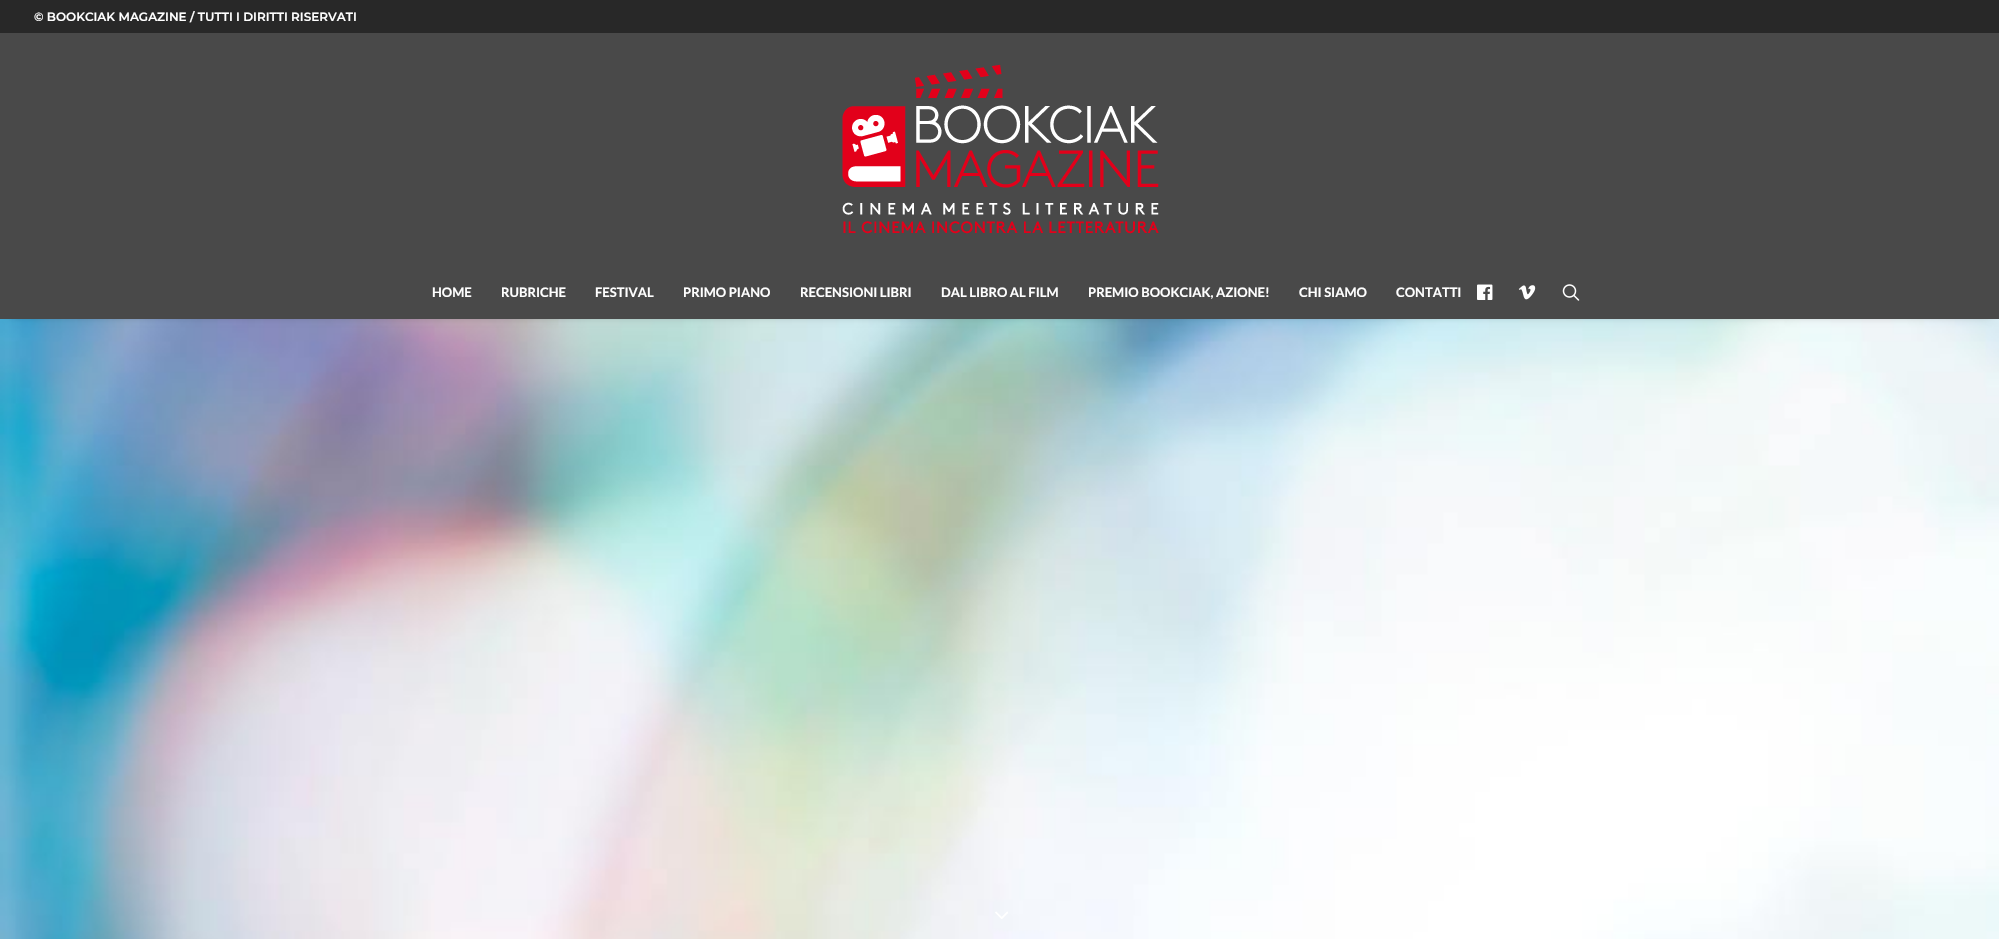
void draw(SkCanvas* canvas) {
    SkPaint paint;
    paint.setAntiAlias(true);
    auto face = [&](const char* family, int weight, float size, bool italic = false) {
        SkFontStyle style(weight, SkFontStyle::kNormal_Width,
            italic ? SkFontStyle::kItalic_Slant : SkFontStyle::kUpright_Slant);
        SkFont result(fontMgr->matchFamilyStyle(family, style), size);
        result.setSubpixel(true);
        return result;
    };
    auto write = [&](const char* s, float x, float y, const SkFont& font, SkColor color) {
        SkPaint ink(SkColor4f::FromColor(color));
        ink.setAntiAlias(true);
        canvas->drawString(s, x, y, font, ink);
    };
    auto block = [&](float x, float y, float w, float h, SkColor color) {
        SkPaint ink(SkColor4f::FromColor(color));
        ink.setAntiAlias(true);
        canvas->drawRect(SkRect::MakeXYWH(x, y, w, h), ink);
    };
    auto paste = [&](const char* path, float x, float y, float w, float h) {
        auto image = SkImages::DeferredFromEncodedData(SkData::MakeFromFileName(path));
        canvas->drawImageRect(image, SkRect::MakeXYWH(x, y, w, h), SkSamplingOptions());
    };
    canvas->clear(SK_ColorWHITE);
    paste("pic1.png", 0, 319, 1999, 620);
    block(0, 0, 1999, 33, SkColorSetRGB(40, 40, 40));
    auto kFont1 = face("Montserrat", 600, 12);
    write("© BOOKCIAK MAGAZINE / TUTTI I DIRITTI RISERVATI", 34, 21, kFont1, SK_ColorWHITE);
    paint.setColor(SkColorSetARGB(153, 0, 0, 0));
    paint.setMaskFilter(SkMaskFilter::MakeBlur(kNormal_SkBlurStyle, 5));
    canvas->drawRect(SkRect::MakeXYWH(8, 279, 1984, 34), paint);
    paint.setMaskFilter(nullptr);
    block(0, 33, 1999, 286, SkColorSetRGB(73, 73, 73));
    paste("pic2.png", 842, 64, 317, 170);
    auto kFont2 = face("Lato", 700, 13);
    write("HOME", 432, 297, kFont2, SK_ColorWHITE);
    write("RUBRICHE", 501, 297, kFont2, SK_ColorWHITE);
    write("FESTIVAL", 595, 297, kFont2, SK_ColorWHITE);
    write("PRIMO PIANO", 683, 297, kFont2, SK_ColorWHITE);
    write("RECENSIONI LIBRI", 800, 297, kFont2, SK_ColorWHITE);
    write("DAL LIBRO AL FILM", 941, 297, kFont2, SK_ColorWHITE);
    write("PREMIO BOOKCIAK, AZIONE!", 1088, 297, kFont2, SK_ColorWHITE);
    write("CHI SIAMO", 1299, 297, kFont2, SK_ColorWHITE);
    write("CONTATTI", 1396, 297, kFont2, SK_ColorWHITE);
    paste("pic3.png", 1477, 284, 16, 16);
    paste("pic4.png", 1518, 285, 18, 15);
    paste("pic5.png", 1562, 284, 18, 17);
    paste("pic6.png", 995, 911, 13, 8);
}
